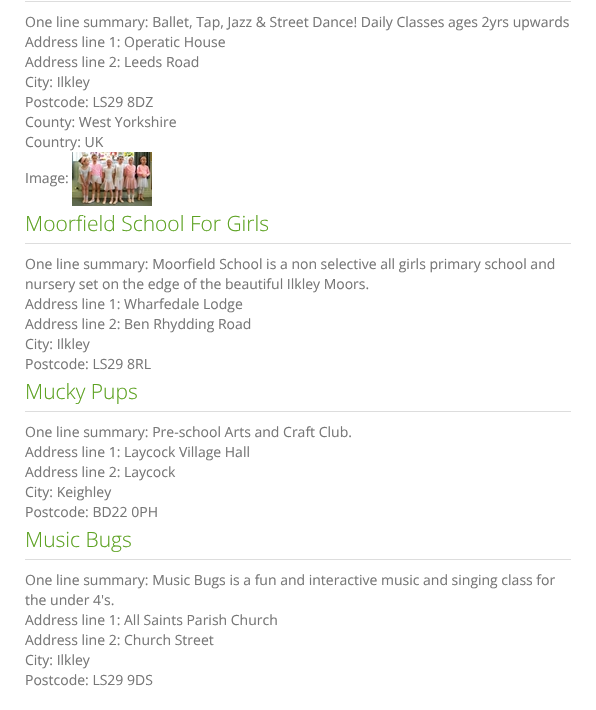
void draw(SkCanvas* canvas) {
    SkPaint paint;
    paint.setAntiAlias(true);
    auto face = [&](const char* family, int weight, float size, bool italic = false) {
        SkFontStyle style(weight, SkFontStyle::kNormal_Width,
            italic ? SkFontStyle::kItalic_Slant : SkFontStyle::kUpright_Slant);
        SkFont result(fontMgr->matchFamilyStyle(family, style), size);
        result.setSubpixel(true);
        return result;
    };
    auto write = [&](const char* s, float x, float y, const SkFont& font, SkColor color) {
        SkPaint ink(SkColor4f::FromColor(color));
        ink.setAntiAlias(true);
        canvas->drawString(s, x, y, font, ink);
    };
    auto block = [&](float x, float y, float w, float h, SkColor color) {
        SkPaint ink(SkColor4f::FromColor(color));
        ink.setAntiAlias(true);
        canvas->drawRect(SkRect::MakeXYWH(x, y, w, h), ink);
    };
    auto paste = [&](const char* path, float x, float y, float w, float h) {
        auto image = SkImages::DeferredFromEncodedData(SkData::MakeFromFileName(path));
        canvas->drawImageRect(image, SkRect::MakeXYWH(x, y, w, h), SkSamplingOptions());
    };
    canvas->clear(SK_ColorWHITE);
    block(25, 1, 546, 1, SkColorSetRGB(221, 221, 221));
    auto kFont1 = face("Open Sans", 400, 14);
    write("One line summary: Ballet, Tap, Jazz & Street Dance! Daily Classes ages 2yrs upwards", 25, 27, kFont1, SkColorSetRGB(119, 119, 119));
    write("Address line 1: Operatic House", 25, 47, kFont1, SkColorSetRGB(119, 119, 119));
    write("Address line 2: Leeds Road", 25, 67, kFont1, SkColorSetRGB(119, 119, 119));
    write("City: Ilkley", 25, 87, kFont1, SkColorSetRGB(119, 119, 119));
    write("Postcode: LS29 8DZ", 25, 107, kFont1, SkColorSetRGB(119, 119, 119));
    write("County: West Yorkshire", 25, 127, kFont1, SkColorSetRGB(119, 119, 119));
    write("Country: UK", 25, 147, kFont1, SkColorSetRGB(119, 119, 119));
    write("Image:", 25, 183, kFont1, SkColorSetRGB(119, 119, 119));
    paste("pic1.png", 72, 152, 80, 54);
    block(25, 243, 546, 1, SkColorSetRGB(221, 221, 221));
    auto kFont2 = face("Open Sans", 300, 21);
    write("Moorfield School For Girls", 25, 231, kFont2, SkColorSetRGB(93, 162, 34));
    write("One line summary: Moorfield School is a non selective all girls primary school and", 25, 269, kFont1, SkColorSetRGB(119, 119, 119));
    write("nursery set on the edge of the beautiful Ilkley Moors.", 25, 289, kFont1, SkColorSetRGB(119, 119, 119));
    write("Address line 1: Wharfedale Lodge", 25, 309, kFont1, SkColorSetRGB(119, 119, 119));
    write("Address line 2: Ben Rhydding Road", 25, 329, kFont1, SkColorSetRGB(119, 119, 119));
    write("City: Ilkley", 25, 349, kFont1, SkColorSetRGB(119, 119, 119));
    write("Postcode: LS29 8RL", 25, 369, kFont1, SkColorSetRGB(119, 119, 119));
    block(25, 411, 546, 1, SkColorSetRGB(221, 221, 221));
    write("Mucky Pups", 25, 399, kFont2, SkColorSetRGB(93, 162, 34));
    write("One line summary: Pre-school Arts and Craft Club.", 25, 437, kFont1, SkColorSetRGB(119, 119, 119));
    write("Address line 1: Laycock Village Hall", 25, 457, kFont1, SkColorSetRGB(119, 119, 119));
    write("Address line 2: Laycock", 25, 477, kFont1, SkColorSetRGB(119, 119, 119));
    write("City: Keighley", 25, 497, kFont1, SkColorSetRGB(119, 119, 119));
    write("Postcode: BD22 0PH", 25, 517, kFont1, SkColorSetRGB(119, 119, 119));
    block(25, 559, 546, 1, SkColorSetRGB(221, 221, 221));
    write("Music Bugs", 25, 547, kFont2, SkColorSetRGB(93, 162, 34));
    write("One line summary: Music Bugs is a fun and interactive music and singing class for", 25, 585, kFont1, SkColorSetRGB(119, 119, 119));
    write("the under 4's.", 25, 605, kFont1, SkColorSetRGB(119, 119, 119));
    write("Address line 1: All Saints Parish Church", 25, 625, kFont1, SkColorSetRGB(119, 119, 119));
    write("Address line 2: Church Street", 25, 645, kFont1, SkColorSetRGB(119, 119, 119));
    write("City: Ilkley", 25, 665, kFont1, SkColorSetRGB(119, 119, 119));
    write("Postcode: LS29 9DS", 25, 685, kFont1, SkColorSetRGB(119, 119, 119));
}
